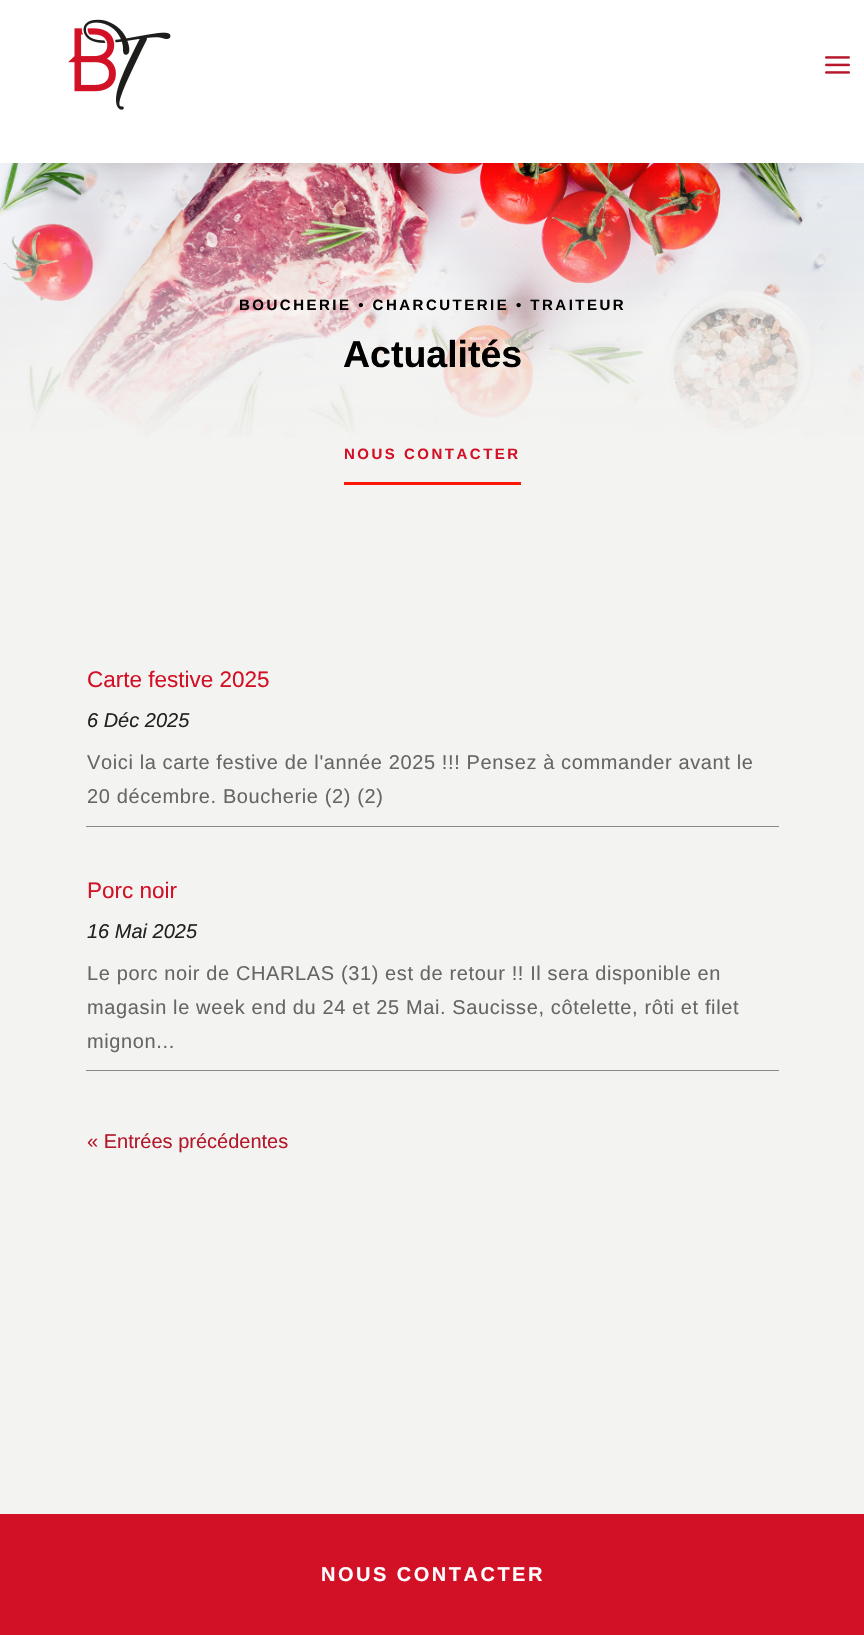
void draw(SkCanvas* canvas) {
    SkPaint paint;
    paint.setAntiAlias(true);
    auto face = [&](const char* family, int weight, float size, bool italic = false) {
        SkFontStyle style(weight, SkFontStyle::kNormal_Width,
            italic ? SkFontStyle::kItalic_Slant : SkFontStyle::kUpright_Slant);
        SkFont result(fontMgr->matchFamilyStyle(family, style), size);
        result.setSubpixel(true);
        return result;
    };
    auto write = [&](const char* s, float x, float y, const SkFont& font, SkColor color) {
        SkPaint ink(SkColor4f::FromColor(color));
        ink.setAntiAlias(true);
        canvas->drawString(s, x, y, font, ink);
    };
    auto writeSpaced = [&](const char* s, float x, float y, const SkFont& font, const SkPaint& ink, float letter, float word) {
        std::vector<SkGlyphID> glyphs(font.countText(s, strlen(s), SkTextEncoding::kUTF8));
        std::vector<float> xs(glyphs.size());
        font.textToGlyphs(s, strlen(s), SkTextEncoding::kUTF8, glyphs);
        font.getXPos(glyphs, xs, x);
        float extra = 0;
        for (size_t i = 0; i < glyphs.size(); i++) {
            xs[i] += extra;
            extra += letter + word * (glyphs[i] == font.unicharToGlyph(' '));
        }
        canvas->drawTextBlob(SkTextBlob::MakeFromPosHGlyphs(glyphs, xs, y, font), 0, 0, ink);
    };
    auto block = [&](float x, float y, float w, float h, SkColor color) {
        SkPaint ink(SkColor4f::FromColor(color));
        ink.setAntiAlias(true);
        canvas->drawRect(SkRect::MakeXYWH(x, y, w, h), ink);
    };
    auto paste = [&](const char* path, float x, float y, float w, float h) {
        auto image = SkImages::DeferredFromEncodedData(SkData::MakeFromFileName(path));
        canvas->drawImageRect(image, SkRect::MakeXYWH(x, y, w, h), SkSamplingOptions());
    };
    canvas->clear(SkColorSetRGB(243, 243, 241));
    paste("pic1.png", 0, 163, 864, 274);
    auto kFont1 = face("Liberation Sans", 700, 15);
    paint.setColor(SK_ColorBLACK);
    writeSpaced("BOUCHERIE • CHARCUTERIE • TRAITEUR", 239, 310, kFont1, paint, 2.5f, 0);
    auto kFont2 = face("Liberation Sans", 700, 37.5f);
    write("Actualités", 343, 367, kFont2, SK_ColorBLACK);
    block(344, 482, 177, 3, SkColorSetRGB(254, 23, 7));
    paint.setColor(SkColorSetRGB(211, 17, 38));
    writeSpaced("NOUS CONTACTER", 344, 459, kFont1, paint, 2.5f, 0);
    block(86, 826, 693, 1, SkColorSetRGB(136, 136, 136));
    auto kFont3 = face("Liberation Sans", 400, 22.5f);
    write("Carte festive 2025", 87, 687, kFont3, SkColorSetRGB(211, 17, 38));
    auto kFont4 = face("Liberation Sans", 400, 20, true);
    write("6 Déc 2025", 87, 727, kFont4, SkColorSetRGB(34, 34, 34));
    auto kFont5 = face("Liberation Sans", 400, 20);
    paint.setColor(SkColorSetRGB(102, 102, 102));
    writeSpaced("Voici la carte festive de l'année 2025 !!! Pensez à commander avant le", 87, 769, kFont5, paint, 0.62f, 0);
    writeSpaced("20 décembre. Boucherie (2) (2)", 87, 803, kFont5, paint, 0.62f, 0);
    block(86, 1070, 693, 1, SkColorSetRGB(136, 136, 136));
    write("Porc noir", 87, 898, kFont3, SkColorSetRGB(211, 17, 38));
    write("16 Mai 2025", 87, 938, kFont4, SkColorSetRGB(34, 34, 34));
    writeSpaced("Le porc noir de CHARLAS (31) est de retour !! Il sera disponible en", 87, 980, kFont5, paint, 0.62f, 0);
    writeSpaced("magasin le week end du 24 et 25 Mai. Saucisse, côtelette, rôti et filet", 87, 1014, kFont5, paint, 0.62f, 0);
    writeSpaced("mignon...", 87, 1048, kFont5, paint, 0.62f, 0);
    write("« Entrées précédentes", 87, 1148, kFont5, SkColorSetRGB(180, 24, 42));
    paint.setColor(SkColorSetARGB(77, 0, 0, 0));
    paint.setMaskFilter(SkMaskFilter::MakeBlur(kNormal_SkBlurStyle, 13));
    canvas->drawRect(SkRect::MakeXYWH(24, 39, 817, 115), paint);
    paint.setMaskFilter(nullptr);
    block(0, 0, 864, 163, SK_ColorWHITE);
    paste("pic2.png", 68, 19, 103, 91);
    paste("pic3.png", 825, 56, 25, 18);
    block(0, 1514, 864, 121, SkColorSetRGB(211, 17, 38));
    auto kFont6 = face("Liberation Sans", 700, 20);
    paint.setColor(SK_ColorWHITE);
    writeSpaced("NOUS CONTACTER", 321, 1581, kFont6, paint, 2.5f, 0);
}
